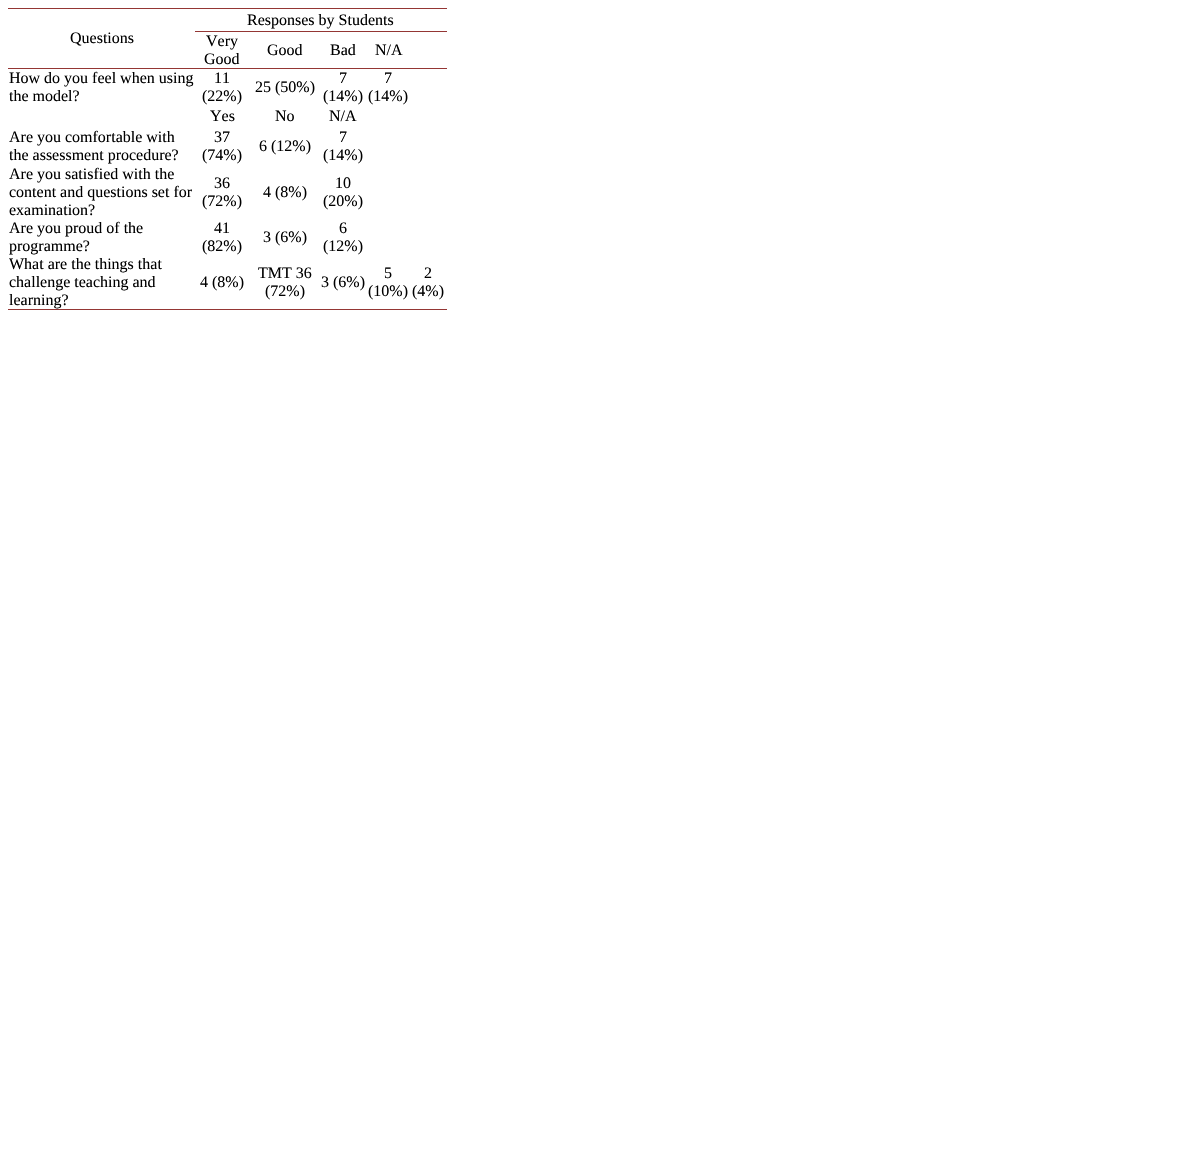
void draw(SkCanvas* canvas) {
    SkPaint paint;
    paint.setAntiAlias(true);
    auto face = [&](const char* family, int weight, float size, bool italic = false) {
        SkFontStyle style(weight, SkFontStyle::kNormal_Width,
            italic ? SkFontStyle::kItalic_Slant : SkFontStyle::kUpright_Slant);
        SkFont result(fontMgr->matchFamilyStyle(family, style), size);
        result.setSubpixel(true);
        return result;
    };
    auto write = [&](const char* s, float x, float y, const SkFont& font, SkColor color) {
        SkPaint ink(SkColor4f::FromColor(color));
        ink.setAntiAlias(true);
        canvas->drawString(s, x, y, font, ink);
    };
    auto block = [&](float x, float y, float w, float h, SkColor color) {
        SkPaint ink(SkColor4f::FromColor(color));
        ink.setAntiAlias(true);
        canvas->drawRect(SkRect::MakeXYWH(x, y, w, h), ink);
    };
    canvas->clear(SK_ColorWHITE);
    block(8, 8, 439, 1, SkColorSetRGB(148, 54, 52));
    block(195, 31, 252, 1, SkColorSetRGB(148, 54, 52));
    auto kFont1 = face("Liberation Serif", 400, 16);
    write("Responses by Students", 247, 25, kFont1, SK_ColorBLACK);
    write("Questions", 70, 43, kFont1, SK_ColorBLACK);
    write("Very", 206, 46, kFont1, SK_ColorBLACK);
    write("Good", 204, 64, kFont1, SK_ColorBLACK);
    write("Good", 267, 55, kFont1, SK_ColorBLACK);
    write("Bad", 330, 55, kFont1, SK_ColorBLACK);
    write("N/A", 375, 55, kFont1, SK_ColorBLACK);
    block(8, 68, 439, 1, SkColorSetRGB(148, 54, 52));
    write("How do you feel when using", 9, 83, kFont1, SK_ColorBLACK);
    write("the model?", 9, 101, kFont1, SK_ColorBLACK);
    write("11", 214, 83, kFont1, SK_ColorBLACK);
    write("(22%)", 202, 101, kFont1, SK_ColorBLACK);
    write("25 (50%)", 255, 92, kFont1, SK_ColorBLACK);
    write("7", 339, 83, kFont1, SK_ColorBLACK);
    write("(14%)", 323, 101, kFont1, SK_ColorBLACK);
    write("7", 384, 83, kFont1, SK_ColorBLACK);
    write("(14%)", 368, 101, kFont1, SK_ColorBLACK);
    write("Yes", 210, 121, kFont1, SK_ColorBLACK);
    write("No", 275, 121, kFont1, SK_ColorBLACK);
    write("N/A", 329, 121, kFont1, SK_ColorBLACK);
    write("Are you comfortable with", 9, 142, kFont1, SK_ColorBLACK);
    write("the assessment procedure?", 9, 160, kFont1, SK_ColorBLACK);
    write("37", 214, 142, kFont1, SK_ColorBLACK);
    write("(74%)", 202, 160, kFont1, SK_ColorBLACK);
    write("6 (12%)", 259, 151, kFont1, SK_ColorBLACK);
    write("7", 339, 142, kFont1, SK_ColorBLACK);
    write("(14%)", 323, 160, kFont1, SK_ColorBLACK);
    write("Are you satisfied with the", 9, 179, kFont1, SK_ColorBLACK);
    write("content and questions set for", 9, 197, kFont1, SK_ColorBLACK);
    write("examination?", 9, 215, kFont1, SK_ColorBLACK);
    write("36", 214, 188, kFont1, SK_ColorBLACK);
    write("(72%)", 202, 206, kFont1, SK_ColorBLACK);
    write("4 (8%)", 263, 197, kFont1, SK_ColorBLACK);
    write("10", 335, 188, kFont1, SK_ColorBLACK);
    write("(20%)", 323, 206, kFont1, SK_ColorBLACK);
    write("Are you proud of the", 9, 233, kFont1, SK_ColorBLACK);
    write("programme?", 9, 251, kFont1, SK_ColorBLACK);
    write("41", 214, 233, kFont1, SK_ColorBLACK);
    write("(82%)", 202, 251, kFont1, SK_ColorBLACK);
    write("3 (6%)", 263, 242, kFont1, SK_ColorBLACK);
    write("6", 339, 233, kFont1, SK_ColorBLACK);
    write("(12%)", 323, 251, kFont1, SK_ColorBLACK);
    write("What are the things that", 9, 269, kFont1, SK_ColorBLACK);
    write("challenge teaching and", 9, 287, kFont1, SK_ColorBLACK);
    write("learning?", 9, 305, kFont1, SK_ColorBLACK);
    write("TMT 36", 258, 278, kFont1, SK_ColorBLACK);
    write("(72%)", 265, 296, kFont1, SK_ColorBLACK);
    write("5", 384, 278, kFont1, SK_ColorBLACK);
    write("(10%) (4%)", 368, 296, kFont1, SK_ColorBLACK);
    block(8, 309, 439, 1, SkColorSetRGB(148, 54, 52));
    write("2", 424, 278, kFont1, SK_ColorBLACK);
    write("4 (8%)", 200, 287, kFont1, SK_ColorBLACK);
    write("3 (6%)", 321, 287, kFont1, SK_ColorBLACK);
}
